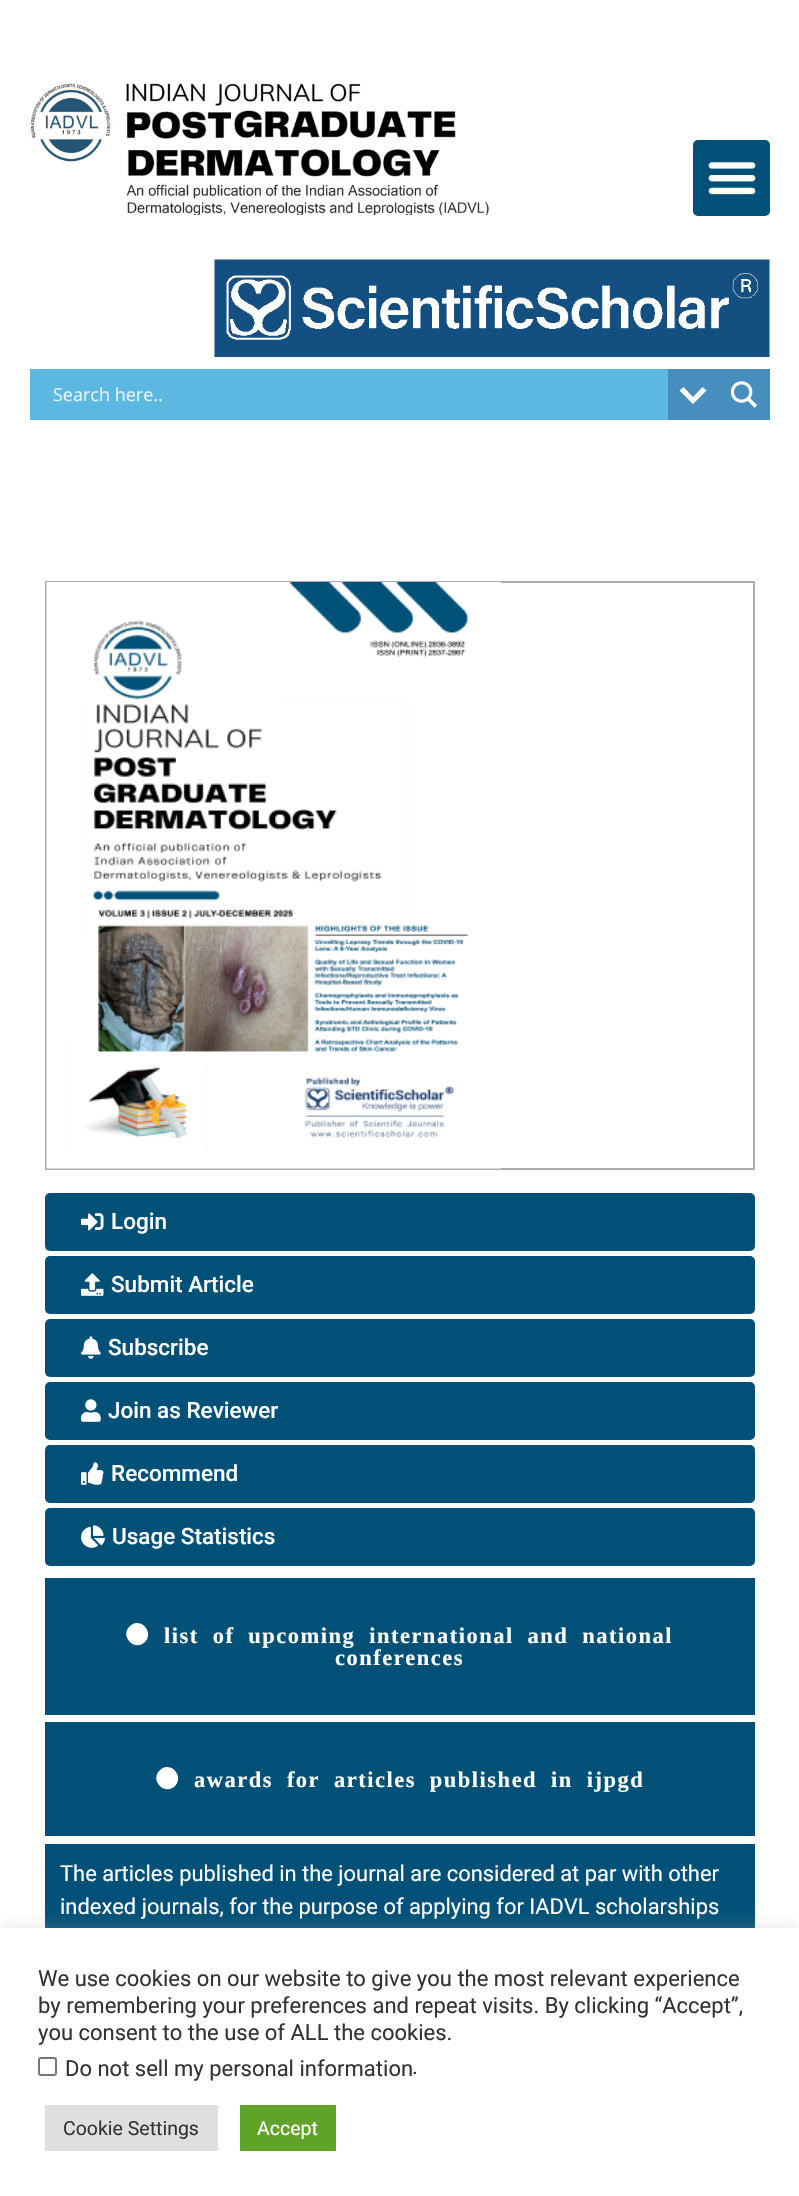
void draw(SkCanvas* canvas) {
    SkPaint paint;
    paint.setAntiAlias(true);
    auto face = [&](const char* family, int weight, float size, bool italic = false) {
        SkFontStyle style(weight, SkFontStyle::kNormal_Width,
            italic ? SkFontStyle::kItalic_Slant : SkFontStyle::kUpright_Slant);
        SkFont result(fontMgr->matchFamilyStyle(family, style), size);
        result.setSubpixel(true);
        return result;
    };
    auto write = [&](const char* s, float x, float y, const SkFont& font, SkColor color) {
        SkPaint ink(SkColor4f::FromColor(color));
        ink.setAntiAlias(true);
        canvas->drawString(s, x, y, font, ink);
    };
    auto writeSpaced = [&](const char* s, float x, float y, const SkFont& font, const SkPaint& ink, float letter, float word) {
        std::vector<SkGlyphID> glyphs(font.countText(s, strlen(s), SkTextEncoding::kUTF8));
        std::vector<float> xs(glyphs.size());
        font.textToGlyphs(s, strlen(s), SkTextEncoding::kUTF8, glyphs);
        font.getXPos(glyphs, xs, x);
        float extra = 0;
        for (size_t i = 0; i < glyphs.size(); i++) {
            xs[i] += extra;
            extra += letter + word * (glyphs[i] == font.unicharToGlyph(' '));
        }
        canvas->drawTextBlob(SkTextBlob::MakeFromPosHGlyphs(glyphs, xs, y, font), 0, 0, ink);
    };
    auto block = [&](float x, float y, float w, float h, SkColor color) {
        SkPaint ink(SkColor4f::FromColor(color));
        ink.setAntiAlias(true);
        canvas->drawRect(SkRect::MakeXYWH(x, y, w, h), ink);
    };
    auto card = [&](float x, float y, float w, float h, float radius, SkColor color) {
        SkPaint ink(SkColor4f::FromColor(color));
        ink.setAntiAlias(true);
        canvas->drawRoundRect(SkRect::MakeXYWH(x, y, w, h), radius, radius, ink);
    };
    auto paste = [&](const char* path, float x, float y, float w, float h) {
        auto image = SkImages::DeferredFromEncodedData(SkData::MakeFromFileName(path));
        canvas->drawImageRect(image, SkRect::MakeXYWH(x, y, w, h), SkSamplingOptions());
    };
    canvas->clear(SK_ColorWHITE);
    paste("pic1.png", 30, 83, 460, 132);
    card(693, 140, 77, 76, 5, SkColorSetRGB(0, 80, 119));
    paste("pic2.png", 708, 162, 48, 33);
    paste("pic3.png", 214, 259, 556, 98);
    block(30, 369, 638, 51, SkColorSetRGB(92, 183, 225));
    block(668, 369, 102, 51, SkColorSetRGB(70, 142, 190));
    paint.setColor(SK_ColorWHITE);
    canvas->drawPath(SkPathBuilder().moveTo(702.5f, 387).lineTo(706.5f, 390.5f).lineTo(693, 404).lineTo(679.5f, 390.5f).lineTo(683.5f, 387).lineTo(693, 397).close().detach(), paint);
    auto kFont1 = face("Open Sans", 400, 18);
    write("Search here..", 53, 401, kFont1, SkColorSetRGB(231, 244, 251));
    paste("pic4.png", 730, 381, 28, 27);
    paint.setStyle(SkPaint::kStroke_Style);
    paint.setStrokeWidth(2);
    paint.setColor(SkColorSetRGB(173, 170, 170));
    canvas->drawRect(SkRect::MakeXYWH(46, 582, 708, 587), paint);
    paste("pic5.png", 46, 582, 455, 587);
    card(45, 1193, 710, 58, 5, SkColorSetRGB(0, 80, 119));
    paste("pic6.png", 81, 1213, 23, 18);
    auto kFont2 = face("Roboto", 500, 22.5f);
    write("Login", 111, 1229, kFont2, SK_ColorWHITE);
    card(45, 1256, 710, 58, 5, SkColorSetRGB(0, 80, 119));
    paste("pic7.png", 81, 1273, 23, 23);
    write("Submit Article", 111, 1292, kFont2, SK_ColorWHITE);
    card(45, 1319, 710, 58, 5, SkColorSetRGB(0, 80, 119));
    paste("pic8.png", 81, 1336, 20, 23);
    write("Subscribe", 108, 1355, kFont2, SK_ColorWHITE);
    card(45, 1382, 710, 58, 5, SkColorSetRGB(0, 80, 119));
    paste("pic9.png", 81, 1399, 20, 23);
    write("Join as Reviewer", 108, 1418, kFont2, SK_ColorWHITE);
    card(45, 1445, 710, 58, 5, SkColorSetRGB(0, 80, 119));
    paste("pic10.png", 81, 1462, 23, 23);
    write("Recommend", 111, 1481, kFont2, SK_ColorWHITE);
    card(45, 1508, 710, 58, 5, SkColorSetRGB(0, 80, 119));
    paste("pic11.png", 81, 1525, 24, 23);
    write("Usage Statistics", 112, 1544, kFont2, SK_ColorWHITE);
    block(45, 1578, 710, 137, SkColorSetRGB(0, 80, 119));
    paint.setStyle(SkPaint::kFill_Style);
    paint.setColor(SK_ColorWHITE);
    canvas->drawPath(SkPathBuilder().moveTo(129.5f, 1626.5f).cubicTo(139.5f, 1616, 155, 1631.5f, 145, 1642).cubicTo(135, 1652, 119.5f, 1636.5f, 129.5f, 1626.5f).close().detach(), paint);
    auto kFont3 = face("Liberation Serif", 700, 22.5f);
    writeSpaced("list of upcoming international and national", 164, 1643, kFont3, paint, 1.5f, 6.75f);
    writeSpaced("conferences", 335, 1665, kFont3, paint, 1.5f, 0);
    block(45, 1722, 710, 114, SkColorSetRGB(0, 80, 119));
    canvas->drawPath(SkPathBuilder().moveTo(159.5f, 1770.5f).cubicTo(169.5f, 1760, 185, 1775.5f, 175, 1786).cubicTo(165, 1796, 149.5f, 1780.5f, 159.5f, 1770.5f).close().detach(), paint);
    writeSpaced("awards for articles published in ijpgd", 194, 1787, kFont3, paint, 1.5f, 6.75f);
    block(45, 1844, 710, 84, SkColorSetRGB(0, 80, 119));
    auto kFont4 = face("Roboto", 400, 21.9f);
    write("The articles published in the journal are considered at par with other", 60, 1881, kFont4, SK_ColorWHITE);
    write("indexed journals, for the purpose of applying for IADVL scholarships", 60, 1914, kFont4, SK_ColorWHITE);
    paint.setColor(SkColorSetARGB(77, 172, 171, 171));
    paint.setMaskFilter(SkMaskFilter::MakeBlur(kNormal_SkBlurStyle, 7.5f));
    canvas->drawRect(SkRect::MakeXYWH(0, 1926, 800, 269), paint);
    paint.setMaskFilter(nullptr);
    block(0, 1928, 799, 268, SK_ColorWHITE);
    auto kFont5 = face("Roboto", 400, 22);
    write("We use cookies on our website to give you the most relevant experience", 38, 1986, kFont5, SkColorSetRGB(51, 51, 51));
    write("by remembering your preferences and repeat visits. By clicking “Accept”,", 38, 2013, kFont5, SkColorSetRGB(51, 51, 51));
    write("you consent to the use of ALL the cookies.", 38, 2040, kFont5, SkColorSetRGB(51, 51, 51));
    paint.setStyle(SkPaint::kStroke_Style);
    paint.setColor(SkColorSetRGB(118, 118, 118));
    canvas->drawRoundRect(SkRect::MakeXYWH(39, 2058, 17, 17), 2, 2, paint);
    write("Do not sell my personal information", 65, 2076, kFont5, SkColorSetRGB(51, 51, 51));
    write(".", 412, 2074, kFont5, SkColorSetRGB(51, 51, 51));
    block(45, 2105, 173, 46, SkColorSetRGB(222, 223, 224));
    auto kFont6 = face("Roboto", 400, 19.5f);
    write("Cookie Settings", 63, 2135, kFont6, SkColorSetRGB(51, 51, 51));
    block(240, 2105, 96, 46, SkColorSetRGB(97, 162, 41));
    write("Accept", 257, 2135, kFont6, SK_ColorWHITE);
}
